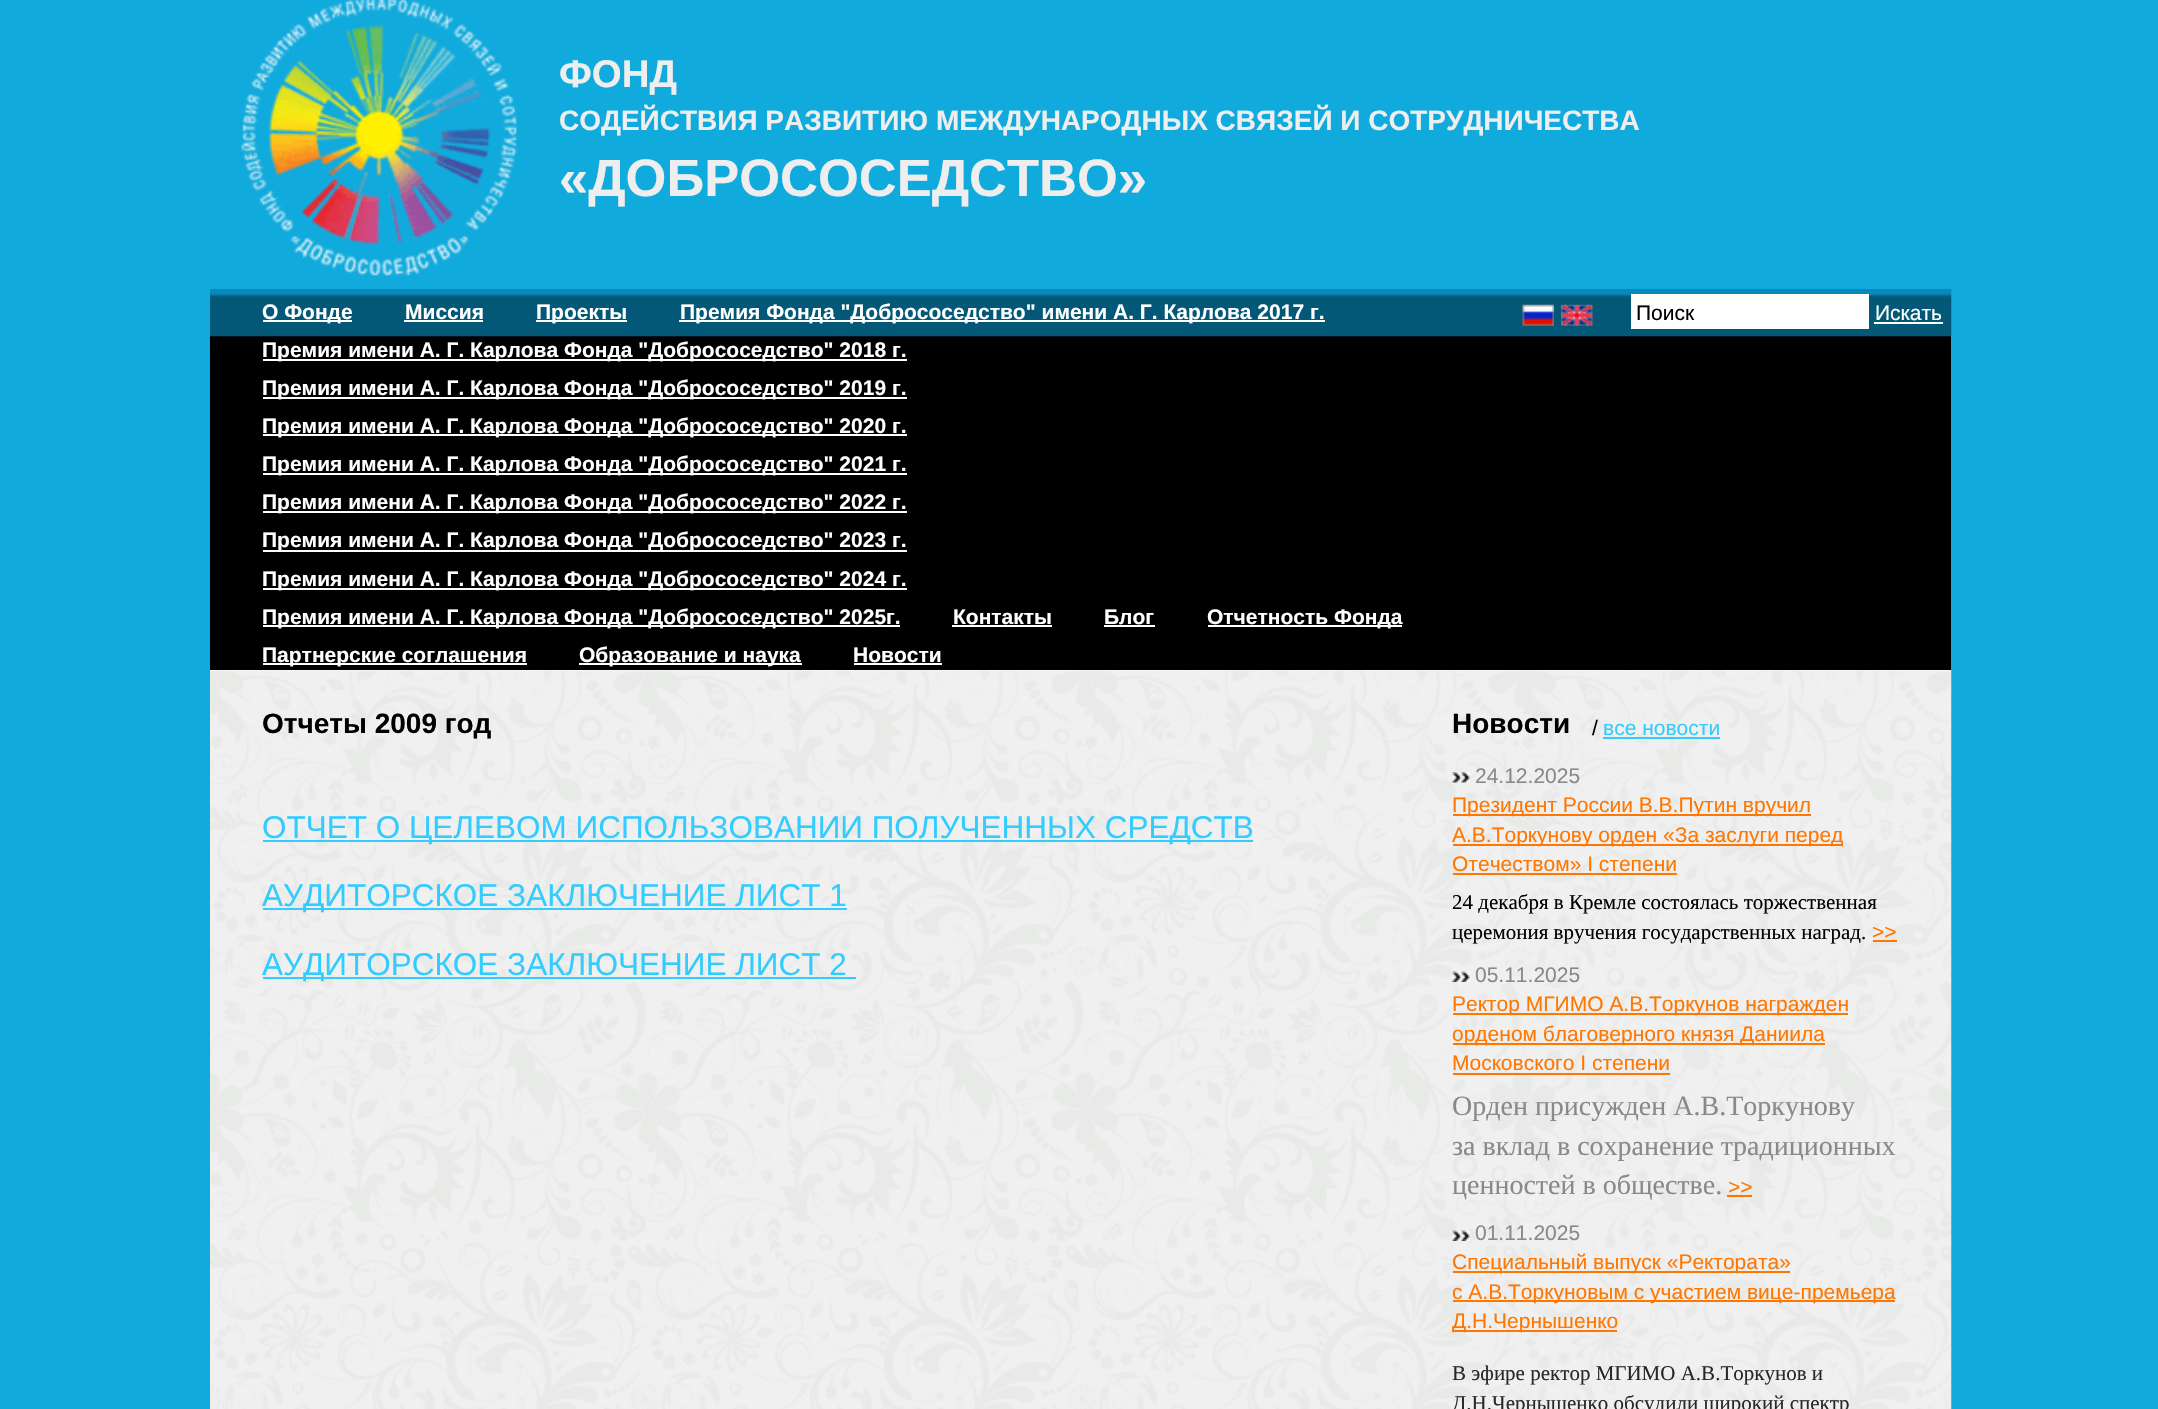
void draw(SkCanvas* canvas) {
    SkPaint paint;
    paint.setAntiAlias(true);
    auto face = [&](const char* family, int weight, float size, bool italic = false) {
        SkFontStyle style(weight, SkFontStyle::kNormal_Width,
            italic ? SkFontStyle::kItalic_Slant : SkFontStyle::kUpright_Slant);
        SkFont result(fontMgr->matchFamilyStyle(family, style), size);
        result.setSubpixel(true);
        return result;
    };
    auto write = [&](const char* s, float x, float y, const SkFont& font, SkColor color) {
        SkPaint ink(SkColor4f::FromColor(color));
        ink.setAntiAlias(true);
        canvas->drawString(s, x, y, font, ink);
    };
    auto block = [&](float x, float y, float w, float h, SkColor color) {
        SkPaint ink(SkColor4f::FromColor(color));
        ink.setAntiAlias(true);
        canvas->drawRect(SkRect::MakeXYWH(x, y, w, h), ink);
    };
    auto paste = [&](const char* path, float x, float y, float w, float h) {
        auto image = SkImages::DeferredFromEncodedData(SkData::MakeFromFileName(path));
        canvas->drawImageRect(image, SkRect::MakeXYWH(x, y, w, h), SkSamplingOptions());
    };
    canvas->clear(SkColorSetRGB(17, 170, 221));
    paste("pic1.png", 241, 0, 276, 276);
    auto kFont1 = face("Liberation Sans", 700, 38.5f);
    write("ФОНД", 559, 87, kFont1, SkColorSetRGB(238, 238, 238));
    auto kFont2 = face("Liberation Sans", 700, 28);
    write("СОДЕЙСТВИЯ РАЗВИТИЮ МЕЖДУНАРОДНЫХ СВЯЗЕЙ И СОТРУДНИЧЕСТВА", 559, 130, kFont2, SkColorSetRGB(238, 238, 238));
    auto kFont3 = face("Liberation Sans", 700, 52.5f);
    write("«ДОБРОСОСЕДСТВО»", 559, 196, kFont3, SkColorSetRGB(238, 238, 238));
    block(210, 336, 1741, 334, SK_ColorBLACK);
    paste("pic2.png", 210, 289, 1742, 48);
    block(679, 320, 646, 2, SK_ColorWHITE);
    auto kFont4 = face("Liberation Sans", 700, 21);
    write("Премия Фонда \"Добрососедство\" имени А. Г. Карлова 2017 г.", 680, 319, kFont4, SK_ColorWHITE);
    block(263, 359, 644, 2, SK_ColorWHITE);
    write("Премия имени А. Г. Карлова Фонда \"Добрососедство\" 2018 г.", 262, 357, kFont4, SK_ColorWHITE);
    block(263, 397, 644, 2, SK_ColorWHITE);
    write("Премия имени А. Г. Карлова Фонда \"Добрососедство\" 2019 г.", 262, 395, kFont4, SK_ColorWHITE);
    block(263, 434, 644, 2, SK_ColorWHITE);
    write("Премия имени А. Г. Карлова Фонда \"Добрососедство\" 2020 г.", 262, 433, kFont4, SK_ColorWHITE);
    block(263, 473, 644, 2, SK_ColorWHITE);
    write("Премия имени А. Г. Карлова Фонда \"Добрососедство\" 2021 г.", 262, 471, kFont4, SK_ColorWHITE);
    block(263, 511, 644, 2, SK_ColorWHITE);
    write("Премия имени А. Г. Карлова Фонда \"Добрососедство\" 2022 г.", 262, 509, kFont4, SK_ColorWHITE);
    block(263, 550, 644, 2, SK_ColorWHITE);
    write("Премия имени А. Г. Карлова Фонда \"Добрососедство\" 2023 г.", 262, 547, kFont4, SK_ColorWHITE);
    block(263, 588, 644, 2, SK_ColorWHITE);
    write("Премия имени А. Г. Карлова Фонда \"Добрососедство\" 2024 г.", 262, 586, kFont4, SK_ColorWHITE);
    block(263, 625, 637, 2, SK_ColorWHITE);
    write("Премия имени А. Г. Карлова Фонда \"Добрососедство\" 2025г.", 262, 624, kFont4, SK_ColorWHITE);
    block(263, 320, 89, 2, SK_ColorWHITE);
    write("О Фонде", 262, 319, kFont4, SK_ColorWHITE);
    write("Миссия", 405, 319, kFont4, SK_ColorWHITE);
    block(404, 320, 79, 2, SK_ColorWHITE);
    block(536, 320, 91, 2, SK_ColorWHITE);
    write("Проекты", 536, 319, kFont4, SK_ColorWHITE);
    write("Контакты", 953, 624, kFont4, SK_ColorWHITE);
    block(952, 625, 100, 2, SK_ColorWHITE);
    write("Блог", 1104, 624, kFont4, SK_ColorWHITE);
    block(1104, 625, 51, 2, SK_ColorWHITE);
    block(1208, 625, 194, 2, SK_ColorWHITE);
    write("Отчетность Фонда", 1207, 624, kFont4, SK_ColorWHITE);
    block(263, 663, 264, 2, SK_ColorWHITE);
    write("Партнерские соглашения", 262, 662, kFont4, SK_ColorWHITE);
    block(579, 663, 223, 2, SK_ColorWHITE);
    write("Образование и наука", 579, 662, kFont4, SK_ColorWHITE);
    write("Новости", 853, 662, kFont4, SK_ColorWHITE);
    block(854, 663, 88, 2, SK_ColorWHITE);
    paste("pic3.png", 1522, 304, 32, 22);
    paste("pic4.png", 1561, 304, 32, 22);
    block(1631, 294, 238, 35, SK_ColorWHITE);
    auto kFont5 = face("Liberation Sans", 400, 21);
    write("Поиск", 1636, 320, kFont5, SK_ColorBLACK);
    write("Искать", 1875, 320, kFont5, SK_ColorWHITE);
    block(1874, 322, 69, 2, SK_ColorWHITE);
    block(210, 670, 1741, 1, SK_ColorWHITE);
    paste("pic5.png", 210, 670, 1742, 739);
    write("Отчеты 2009 год", 262, 733, kFont2, SK_ColorBLACK);
    block(263, 840, 990, 2, SkColorSetRGB(51, 204, 255));
    auto kFont6 = face("Liberation Sans", 400, 31.5f);
    write("ОТЧЕТ О ЦЕЛЕВОМ ИСПОЛЬЗОВАНИИ ПОЛУЧЕННЫХ СРЕДСТВ", 262, 838, kFont6, SkColorSetRGB(51, 204, 255));
    block(263, 908, 584, 2, SkColorSetRGB(51, 204, 255));
    write("АУДИТОРСКОЕ ЗАКЛЮЧЕНИЕ ЛИСТ 1", 262, 906, kFont6, SkColorSetRGB(51, 204, 255));
    block(263, 977, 593, 2, SkColorSetRGB(51, 204, 255));
    write("АУДИТОРСКОЕ ЗАКЛЮЧЕНИЕ ЛИСТ 2", 262, 975, kFont6, SkColorSetRGB(51, 204, 255));
    write("Новости", 1452, 733, kFont2, SK_ColorBLACK);
    write("/", 1592, 735, kFont5, SK_ColorBLACK);
    write("все новости", 1603, 735, kFont5, SkColorSetRGB(51, 204, 255));
    block(1603, 737, 117, 2, SkColorSetRGB(51, 204, 255));
    paste("pic6.png", 1452, 772, 18, 11);
    write("24.12.2025", 1475, 783, kFont5, SkColorSetRGB(137, 137, 137));
    block(1453, 814, 358, 2, SkColorSetRGB(255, 119, 0));
    write("Президент России В.В.Путин вручил", 1452, 812, kFont5, SkColorSetRGB(255, 119, 0));
    block(1453, 844, 390, 2, SkColorSetRGB(255, 119, 0));
    write("А.В.Торкунову орден «За заслуги перед", 1452, 842, kFont5, SkColorSetRGB(255, 119, 0));
    write("Отечеством» I степени", 1452, 871, kFont5, SkColorSetRGB(255, 119, 0));
    block(1453, 873, 224, 2, SkColorSetRGB(255, 119, 0));
    auto kFont7 = face("Liberation Serif", 400, 21);
    write("24 декабря в Кремле состоялась торжественная", 1452, 909, kFont7, SK_ColorBLACK);
    write("церемония вручения государственных наград.", 1452, 939, kFont7, SK_ColorBLACK);
    write(">>", 1872, 939, kFont5, SkColorSetRGB(255, 119, 0));
    block(1873, 940, 24, 2, SkColorSetRGB(255, 119, 0));
    paste("pic7.png", 1452, 971, 18, 11);
    write("05.11.2025", 1475, 982, kFont5, SkColorSetRGB(137, 137, 137));
    block(1453, 1013, 395, 2, SkColorSetRGB(255, 119, 0));
    write("Ректор МГИМО А.В.Торкунов награжден", 1452, 1011, kFont5, SkColorSetRGB(255, 119, 0));
    block(1453, 1043, 372, 2, SkColorSetRGB(255, 119, 0));
    write("орденом благоверного князя Даниила", 1452, 1041, kFont5, SkColorSetRGB(255, 119, 0));
    write("Московского I степени", 1452, 1070, kFont5, SkColorSetRGB(255, 119, 0));
    block(1453, 1073, 217, 2, SkColorSetRGB(255, 119, 0));
    auto kFont8 = face("Liberation Serif", 400, 28);
    write("Орден присужден А.В.Торкунову", 1452, 1115, kFont8, SkColorSetRGB(137, 137, 137));
    write("за вклад в сохранение традиционных", 1452, 1155, kFont8, SkColorSetRGB(137, 137, 137));
    write("ценностей в обществе.", 1452, 1194, kFont8, SkColorSetRGB(137, 137, 137));
    write(">>", 1728, 1194, kFont5, SkColorSetRGB(255, 119, 0));
    block(1727, 1195, 25, 2, SkColorSetRGB(255, 119, 0));
    paste("pic8.png", 1452, 1230, 18, 11);
    write("01.11.2025", 1475, 1240, kFont5, SkColorSetRGB(137, 137, 137));
    block(1453, 1271, 337, 2, SkColorSetRGB(255, 119, 0));
    write("Специальный выпуск «Ректората»", 1452, 1269, kFont5, SkColorSetRGB(255, 119, 0));
    block(1453, 1300, 442, 2, SkColorSetRGB(255, 119, 0));
    write("с А.В.Торкуновым с участием вице-премьера", 1452, 1299, kFont5, SkColorSetRGB(255, 119, 0));
    block(1453, 1330, 164, 2, SkColorSetRGB(255, 119, 0));
    write("Д.Н.Чернышенко", 1452, 1328, kFont5, SkColorSetRGB(255, 119, 0));
    write("В эфире ректор МГИМО А.В.Торкунов и", 1452, 1380, kFont7, SkColorSetRGB(40, 40, 40));
    write("Д.Н.Чернышенко обсудили широкий спектр", 1452, 1410, kFont7, SkColorSetRGB(40, 40, 40));
}
